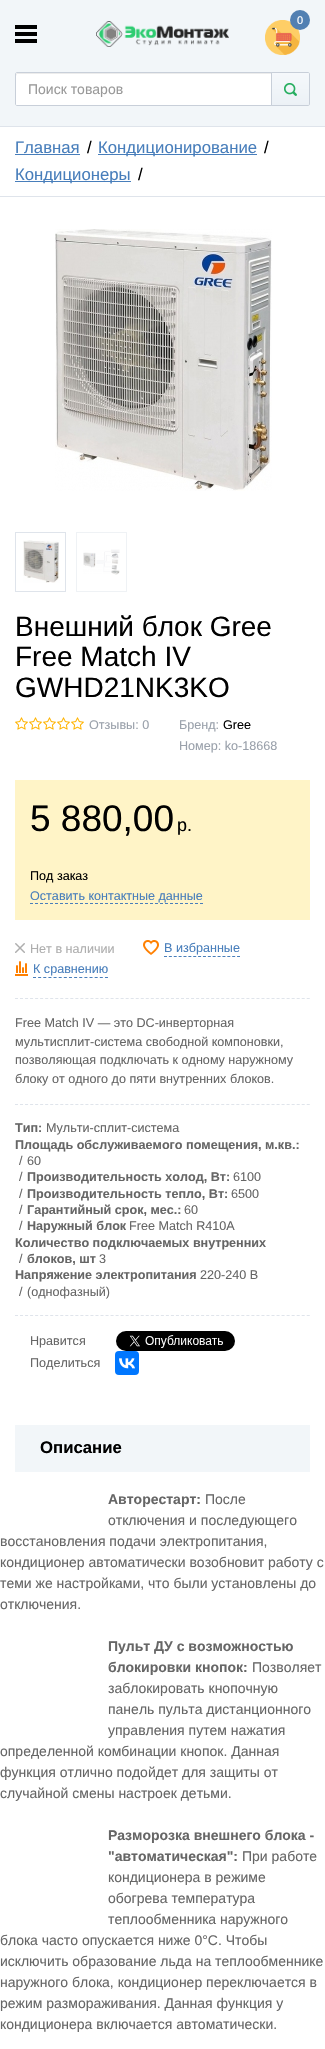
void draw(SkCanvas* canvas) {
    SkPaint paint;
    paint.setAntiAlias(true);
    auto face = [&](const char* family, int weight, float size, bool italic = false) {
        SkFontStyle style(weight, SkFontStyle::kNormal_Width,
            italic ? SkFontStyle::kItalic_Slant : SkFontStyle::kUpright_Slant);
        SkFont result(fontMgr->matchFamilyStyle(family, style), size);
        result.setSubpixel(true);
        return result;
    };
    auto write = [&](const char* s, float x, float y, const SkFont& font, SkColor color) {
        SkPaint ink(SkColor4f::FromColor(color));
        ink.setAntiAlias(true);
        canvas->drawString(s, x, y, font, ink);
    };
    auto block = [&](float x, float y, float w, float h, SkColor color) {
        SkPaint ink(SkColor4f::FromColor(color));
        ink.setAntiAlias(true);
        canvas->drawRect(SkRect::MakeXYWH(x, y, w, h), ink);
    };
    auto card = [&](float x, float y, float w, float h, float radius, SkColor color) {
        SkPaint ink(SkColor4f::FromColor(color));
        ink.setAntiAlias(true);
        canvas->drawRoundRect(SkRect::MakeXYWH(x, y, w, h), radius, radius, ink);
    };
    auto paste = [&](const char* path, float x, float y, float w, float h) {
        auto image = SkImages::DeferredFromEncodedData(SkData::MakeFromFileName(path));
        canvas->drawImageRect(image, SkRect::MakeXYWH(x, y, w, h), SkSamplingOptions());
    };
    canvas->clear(SK_ColorWHITE);
    block(0, 0, 325, 126, SkColorSetRGB(242, 246, 249));
    block(0, 126, 325, 1, SkColorSetRGB(223, 228, 235));
    block(15, 25, 22, 4, SK_ColorBLACK);
    block(15, 32, 22, 4, SK_ColorBLACK);
    block(15, 39, 22, 4, SK_ColorBLACK);
    paste("pic1.png", 96, 21, 133, 26);
    paste("pic2.png", 265, 20, 35, 35);
    paint.setColor(SkColorSetRGB(82, 128, 178));
    canvas->drawCircle(300, 20, 10, paint);
    auto kFont1 = face("Liberation Sans", 400, 11);
    write("0", 297, 24, kFont1, SK_ColorWHITE);
    paint.setColor(SK_ColorWHITE);
    canvas->drawPath(SkPathBuilder().moveTo(17, 72).lineTo(272, 72).lineTo(272, 106).lineTo(17, 106).cubicTo(16, 106, 15, 105, 15, 104).lineTo(15, 74).cubicTo(15, 73, 16, 72, 17, 72).close().detach(), paint);
    paint.setColor(SkColorSetRGB(236, 236, 236));
    canvas->drawPath(SkPathBuilder().moveTo(17, 74).lineTo(271, 74).lineTo(271, 73).lineTo(17, 73).cubicTo(16, 73, 16, 75, 16, 76).close().detach(), paint);
    paint.setStyle(SkPaint::kStroke_Style);
    paint.setStrokeWidth(1);
    paint.setColor(SkColorSetRGB(200, 207, 217));
    canvas->drawPath(SkPathBuilder().moveTo(17, 72.5f).lineTo(271.5f, 72.5f).lineTo(271.5f, 105.5f).lineTo(17, 105.5f).cubicTo(16, 105.5f, 15.5f, 105, 15.5f, 104).lineTo(15.5f, 74).cubicTo(15.5f, 73, 16, 72.5f, 17, 72.5f).close().detach(), paint);
    auto kFont2 = face("Liberation Sans", 400, 14);
    write("Поиск товаров", 28, 94, kFont2, SkColorSetRGB(153, 153, 153));
    paint.setStyle(SkPaint::kFill_Style);
    {
        const SkColor colors[] = {SkColorSetRGB(245, 248, 251), SkColorSetRGB(236, 241, 246)};
        const float stops[] = {0, 1};
        const SkPoint ends[] = {{291, 73}, {291, 105}};
        paint.setShader(SkGradientShader::MakeLinear(ends, colors, stops, 2, SkTileMode::kClamp));
        paint.setAlpha(255);
    }
    canvas->drawRect(SkRect::MakeXYWH(272, 73, 38, 32), paint);
    paint.setStyle(SkPaint::kStroke_Style);
    paint.setShader(nullptr);
    paint.setColor(SkColorSetRGB(200, 207, 217));
    canvas->drawPath(SkPathBuilder().moveTo(271.5f, 72.5f).lineTo(308, 72.5f).cubicTo(309, 72.5f, 309.5f, 73, 309.5f, 74).lineTo(309.5f, 104).cubicTo(309.5f, 105, 309, 105.5f, 308, 105.5f).lineTo(271.5f, 105.5f).close().detach(), paint);
    paste("pic3.png", 284, 83, 13, 13);
    block(0, 196, 325, 1, SkColorSetRGB(223, 228, 235));
    auto kFont3 = face("Liberation Sans", 400, 16.75f);
    write("Главная", 15, 153, kFont3, SkColorSetRGB(72, 126, 187));
    block(15, 154, 65, 1, SkColorSetRGB(72, 126, 187));
    write("/", 87, 153, kFont3, SK_ColorBLACK);
    block(98, 154, 159, 1, SkColorSetRGB(72, 126, 187));
    write("Кондиционирование", 98, 153, kFont3, SkColorSetRGB(72, 126, 187));
    write("/", 264, 153, kFont3, SK_ColorBLACK);
    block(15, 181, 116, 1, SkColorSetRGB(72, 126, 187));
    write("Кондиционеры", 15, 180, kFont3, SkColorSetRGB(72, 126, 187));
    write("/", 138, 180, kFont3, SK_ColorBLACK);
    paste("pic4.png", 55, 229, 217, 262);
    paint.setColor(SkColorSetRGB(223, 228, 235));
    canvas->drawRect(SkRect::MakeXYWH(15.5f, 532.5f, 50, 59), paint);
    paste("pic5.png", 23, 540, 37, 43);
    paint.setColor(SkColorSetRGB(239, 242, 245));
    canvas->drawRect(SkRect::MakeXYWH(76.5f, 532.5f, 50, 59), paint);
    paste("pic6.png", 83, 549, 37, 26);
    auto kFont4 = face("Liberation Sans", 400, 28);
    write("Внешний блок Gree", 15, 636, kFont4, SK_ColorBLACK);
    write("Free Match IV", 15, 666, kFont4, SK_ColorBLACK);
    write("GWHD21NK3KO", 15, 697, kFont4, SK_ColorBLACK);
    paste("pic7.png", 15, 717, 13, 13);
    paste("pic7.png", 29, 717, 13, 13);
    paste("pic7.png", 43, 717, 13, 13);
    paste("pic7.png", 57, 717, 13, 13);
    paste("pic7.png", 71, 717, 13, 13);
    auto kFont5 = face("Liberation Sans", 400, 12.6f);
    write("Отзывы: 0", 89, 729, kFont5, SkColorSetRGB(154, 161, 171));
    write("Бренд:", 179, 729, kFont5, SkColorSetRGB(154, 161, 171));
    write("Gree", 223, 729, kFont5, SK_ColorBLACK);
    write("Номер: ko-18668", 179, 750, kFont5, SkColorSetRGB(154, 161, 171));
    block(15, 780, 295, 140, SkColorSetRGB(255, 244, 199));
    auto kFont6 = face("Liberation Sans", 400, 37);
    write("5 880,00", 30, 831, kFont6, SK_ColorBLACK);
    auto kFont7 = face("Liberation Sans", 400, 18);
    write("р.", 177, 831, kFont7, SK_ColorBLACK);
    write("Под заказ", 30, 880, kFont5, SK_ColorBLACK);
    write("Оставить контактные данные", 30, 900, kFont5, SkColorSetRGB(72, 126, 187));
    paint.setColor(SkColorSetRGB(72, 126, 187));
    paint.setPathEffect(SkDashPathEffect::Make({{3, 2}}, 0));
    canvas->drawPath(SkPathBuilder().moveTo(30, 903.5f).lineTo(203, 903.5f).detach(), paint);
    paint.setPathEffect(nullptr);
    paste("pic8.png", 15, 943, 10, 10);
    write("Нет в наличии", 30, 953, kFont5, SkColorSetRGB(174, 174, 174));
    paste("pic9.png", 143, 940, 16, 15);
    paint.setPathEffect(SkDashPathEffect::Make({{3, 1.87f}}, 0));
    canvas->drawPath(SkPathBuilder().moveTo(164, 956.5f).lineTo(240, 956.5f).detach(), paint);
    paint.setPathEffect(nullptr);
    write("В избранные", 164, 952, kFont5, SkColorSetRGB(72, 126, 187));
    paste("pic10.png", 15, 961, 13, 15);
    paint.setPathEffect(SkDashPathEffect::Make({{3, 2.14f}}, 0));
    canvas->drawPath(SkPathBuilder().moveTo(33, 977.5f).lineTo(108, 977.5f).detach(), paint);
    paint.setPathEffect(nullptr);
    write("К сравнению", 33, 973, kFont5, SkColorSetRGB(72, 126, 187));
    paint.setColor(SkColorSetRGB(223, 228, 235));
    paint.setPathEffect(SkDashPathEffect::Make({{3, 2.03f}}, 0));
    canvas->drawPath(SkPathBuilder().moveTo(15, 998.5f).lineTo(310, 998.5f).detach(), paint);
    paint.setPathEffect(nullptr);
    write("Free Match IV — это DC-инверторная", 15, 1027, kFont5, SkColorSetRGB(102, 102, 102));
    write("мультисплит-система свободной компоновки,", 15, 1046, kFont5, SkColorSetRGB(102, 102, 102));
    write("позволяющая подключать к одному наружному", 15, 1064, kFont5, SkColorSetRGB(102, 102, 102));
    write("блоку от одного до пяти внутренних блоков.", 15, 1083, kFont5, SkColorSetRGB(102, 102, 102));
    paint.setPathEffect(SkDashPathEffect::Make({{3, 2.03f}}, 0));
    canvas->drawPath(SkPathBuilder().moveTo(15, 1104.5f).lineTo(310, 1104.5f).detach(), paint);
    paint.setPathEffect(nullptr);
    auto kFont8 = face("Liberation Sans", 700, 12.6f);
    write("Тип:", 15, 1132, kFont8, SkColorSetRGB(102, 102, 102));
    write("Мульти-сплит-система", 46, 1132, kFont5, SkColorSetRGB(102, 102, 102));
    write("Площадь обслуживаемого помещения, м.кв.:", 15, 1149, kFont8, SkColorSetRGB(102, 102, 102));
    write("/", 19, 1165, kFont5, SkColorSetRGB(102, 102, 102));
    write("60", 27, 1165, kFont5, SkColorSetRGB(102, 102, 102));
    write("/", 19, 1181, kFont5, SkColorSetRGB(102, 102, 102));
    write("Производительность холод, Вт:", 27, 1181, kFont8, SkColorSetRGB(102, 102, 102));
    write("6100", 233, 1181, kFont5, SkColorSetRGB(102, 102, 102));
    write("/", 19, 1198, kFont5, SkColorSetRGB(102, 102, 102));
    write("Производительность тепло, Вт:", 27, 1198, kFont8, SkColorSetRGB(102, 102, 102));
    write("6500", 231, 1198, kFont5, SkColorSetRGB(102, 102, 102));
    write("/", 19, 1214, kFont5, SkColorSetRGB(102, 102, 102));
    write("Гарантийный срок, мес.:", 27, 1214, kFont8, SkColorSetRGB(102, 102, 102));
    write("60", 184, 1214, kFont5, SkColorSetRGB(102, 102, 102));
    write("/", 19, 1230, kFont5, SkColorSetRGB(102, 102, 102));
    write("Наружный блок", 27, 1230, kFont8, SkColorSetRGB(102, 102, 102));
    write("Free Match R410A", 129, 1230, kFont5, SkColorSetRGB(102, 102, 102));
    write("Количество подключаемых внутренних", 15, 1247, kFont8, SkColorSetRGB(102, 102, 102));
    write("/", 19, 1263, kFont5, SkColorSetRGB(102, 102, 102));
    write("блоков, шт", 27, 1263, kFont8, SkColorSetRGB(102, 102, 102));
    write("3", 99, 1263, kFont5, SkColorSetRGB(102, 102, 102));
    write("Напряжение электропитания", 15, 1279, kFont8, SkColorSetRGB(102, 102, 102));
    write("220-240 В", 200, 1279, kFont5, SkColorSetRGB(102, 102, 102));
    write("/", 19, 1296, kFont5, SkColorSetRGB(102, 102, 102));
    write("(однофазный)", 27, 1296, kFont5, SkColorSetRGB(102, 102, 102));
    paint.setPathEffect(SkDashPathEffect::Make({{3, 2.03f}}, 0));
    canvas->drawPath(SkPathBuilder().moveTo(15, 1315.5f).lineTo(310, 1315.5f).detach(), paint);
    paint.setPathEffect(nullptr);
    write("Нравится", 30, 1345, kFont5, SkColorSetRGB(102, 102, 102));
    paste("pic11.png", 116, 1331, 119, 20);
    write("Поделиться", 30, 1367, kFont5, SkColorSetRGB(102, 102, 102));
    card(115, 1351, 24, 24, 4, SkColorSetRGB(0, 119, 255));
    paste("pic12.png", 119, 1358, 16, 11);
    block(15, 1425, 295, 47, SkColorSetRGB(242, 246, 249));
    auto kFont9 = face("Liberation Sans", 700, 16.75f);
    write("Описание", 40, 1453, kFont9, SK_ColorBLACK);
    auto kFont10 = face("Liberation Sans", 700, 14);
    write("Авторестарт:", 108, 1504, kFont10, SkColorSetRGB(102, 102, 102));
    write("После", 205, 1504, kFont2, SkColorSetRGB(102, 102, 102));
    write("отключения и последующего", 108, 1525, kFont2, SkColorSetRGB(102, 102, 102));
    write("восстановления подачи электропитания,", 0, 1546, kFont2, SkColorSetRGB(102, 102, 102));
    write("кондиционер автоматически возобновит работу с", 0, 1567, kFont2, SkColorSetRGB(102, 102, 102));
    write("теми же настройками, что были установлены до", 0, 1588, kFont2, SkColorSetRGB(102, 102, 102));
    write("отключения.", 0, 1609, kFont2, SkColorSetRGB(102, 102, 102));
    write("Пульт ДУ с возможностью", 108, 1651, kFont10, SkColorSetRGB(102, 102, 102));
    write("блокировки кнопок:", 108, 1672, kFont10, SkColorSetRGB(102, 102, 102));
    write("Позволяет", 252, 1672, kFont2, SkColorSetRGB(102, 102, 102));
    write("заблокировать кнопочную", 108, 1693, kFont2, SkColorSetRGB(102, 102, 102));
    write("панель пульта дистанционного", 108, 1714, kFont2, SkColorSetRGB(102, 102, 102));
    write("управления путем нажатия", 108, 1735, kFont2, SkColorSetRGB(102, 102, 102));
    write("определенной комбинации кнопок. Данная", 0, 1756, kFont2, SkColorSetRGB(102, 102, 102));
    write("функция отлично подойдет для защиты от", 0, 1777, kFont2, SkColorSetRGB(102, 102, 102));
    write("случайной смены настроек детьми.", 0, 1798, kFont2, SkColorSetRGB(102, 102, 102));
    write("Разморозка внешнего блока -", 108, 1840, kFont10, SkColorSetRGB(102, 102, 102));
    write("\"автоматическая\":", 108, 1861, kFont10, SkColorSetRGB(102, 102, 102));
    write("При работе", 242, 1861, kFont2, SkColorSetRGB(102, 102, 102));
    write("кондиционера в режиме", 108, 1882, kFont2, SkColorSetRGB(102, 102, 102));
    write("обогрева температура", 108, 1903, kFont2, SkColorSetRGB(102, 102, 102));
    write("теплообменника наружного", 108, 1924, kFont2, SkColorSetRGB(102, 102, 102));
    write("блока часто опускается ниже 0°С. Чтобы", 0, 1945, kFont2, SkColorSetRGB(102, 102, 102));
    write("исключить образование льда на теплообменнике", 0, 1966, kFont2, SkColorSetRGB(102, 102, 102));
    write("наружного блока, кондиционер переключается в", 0, 1987, kFont2, SkColorSetRGB(102, 102, 102));
    write("режим размораживания. Данная функция у", 0, 2008, kFont2, SkColorSetRGB(102, 102, 102));
    write("кондиционера включается автоматически.", 0, 2029, kFont2, SkColorSetRGB(102, 102, 102));
}
